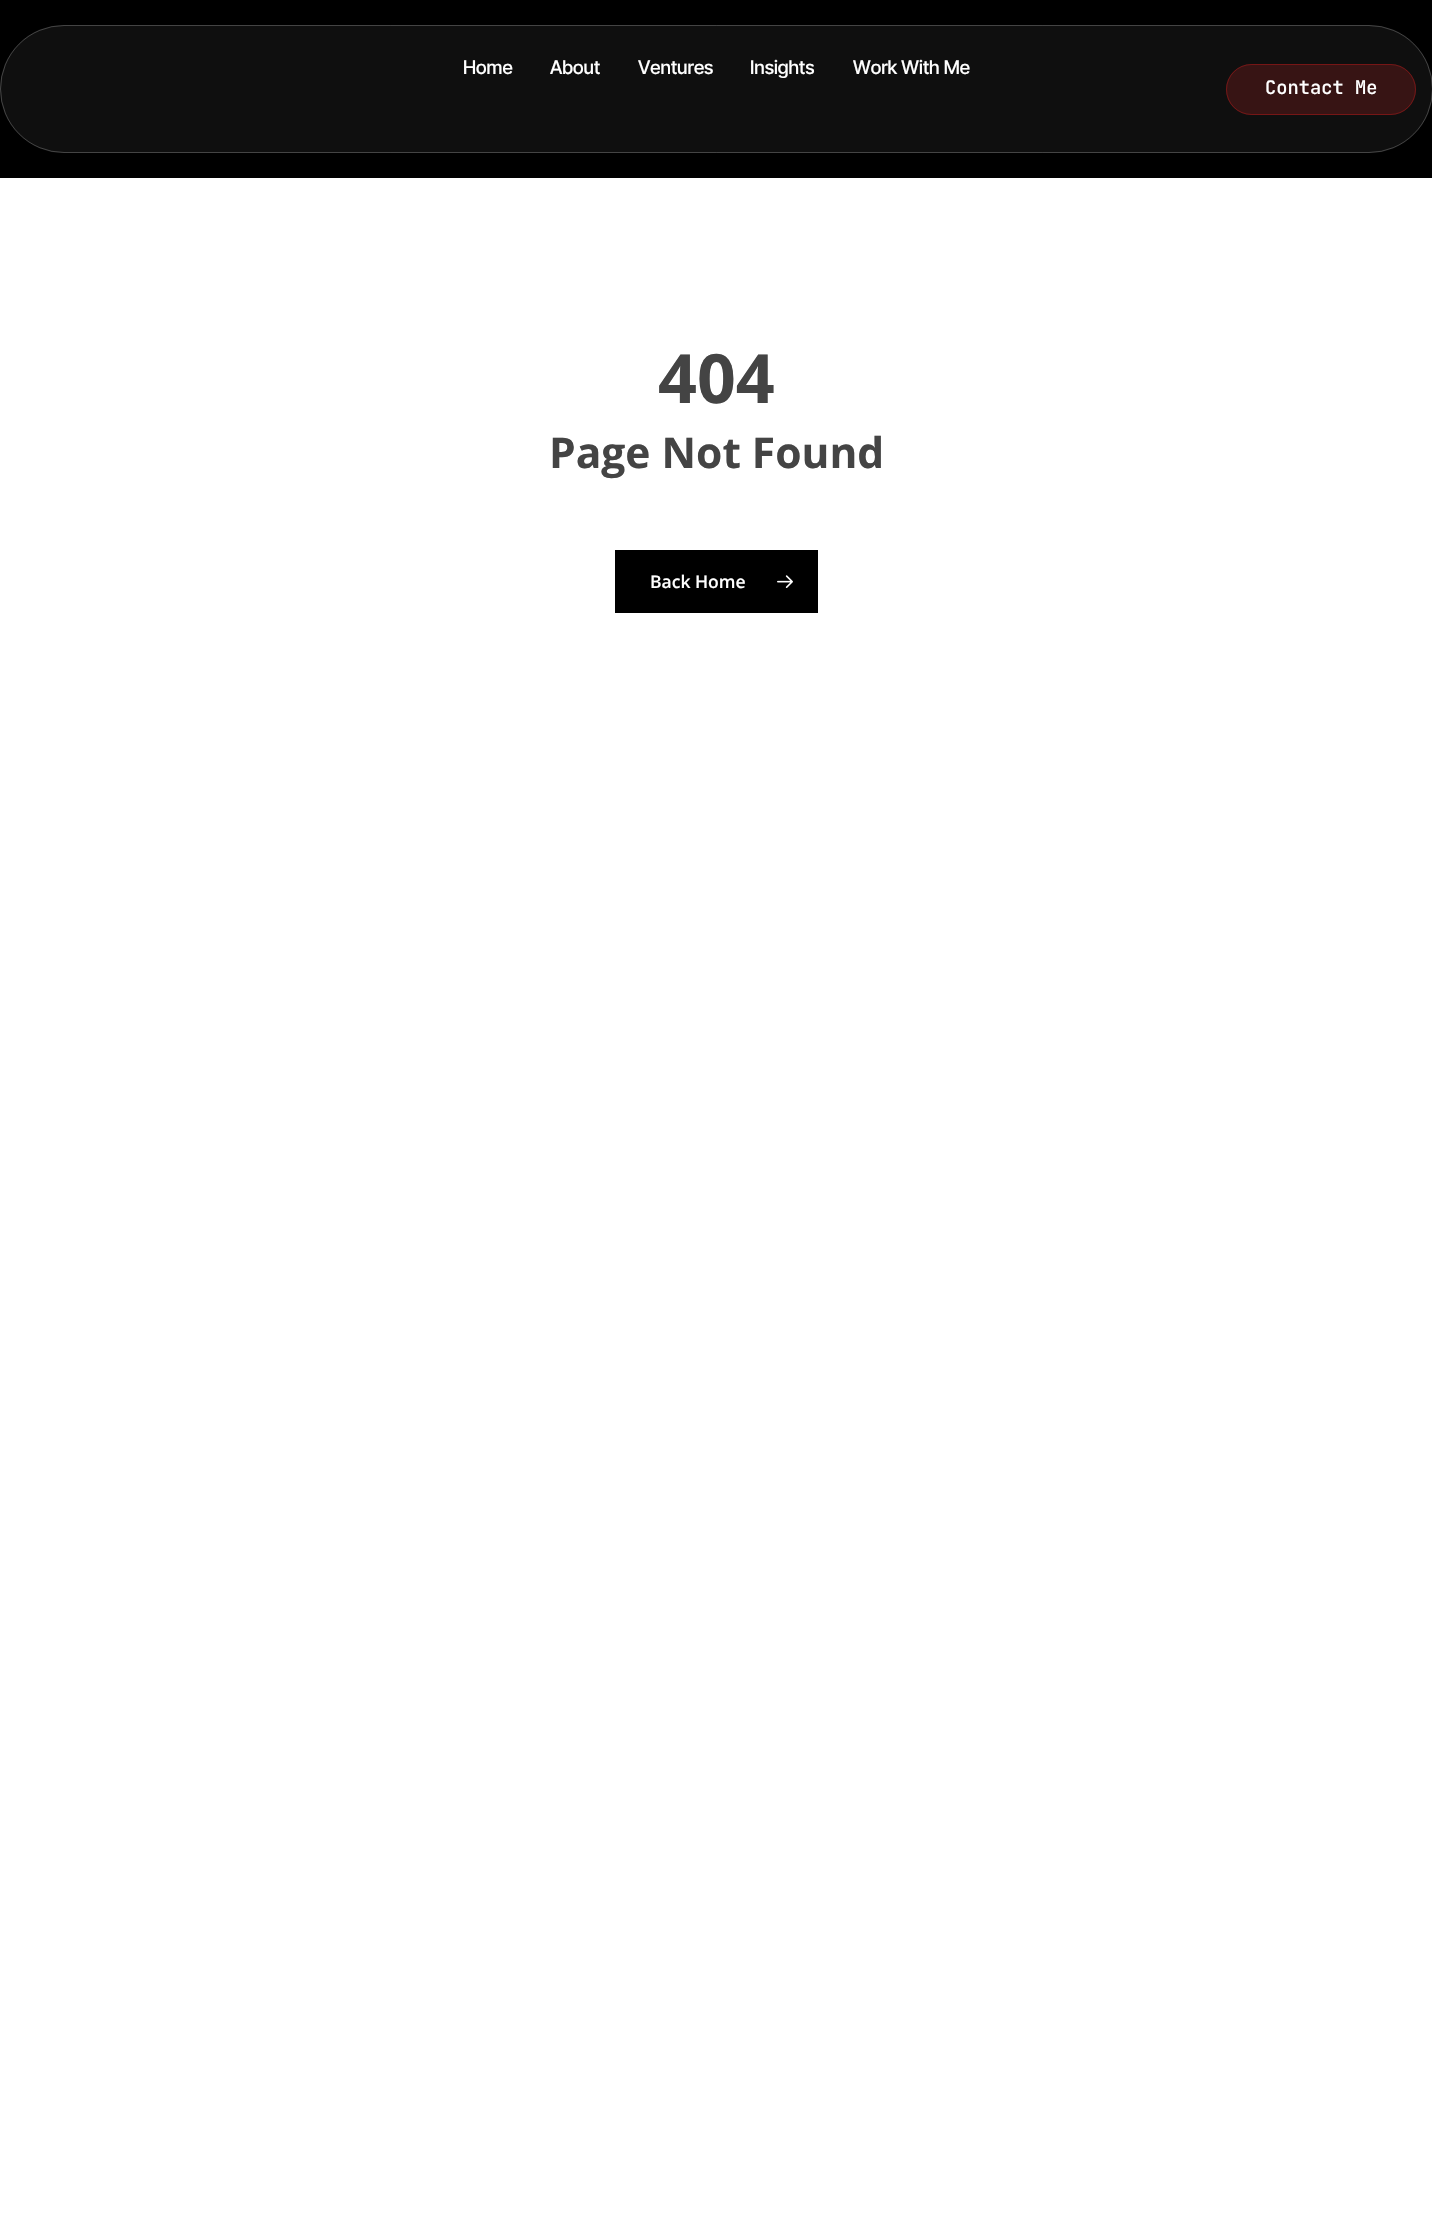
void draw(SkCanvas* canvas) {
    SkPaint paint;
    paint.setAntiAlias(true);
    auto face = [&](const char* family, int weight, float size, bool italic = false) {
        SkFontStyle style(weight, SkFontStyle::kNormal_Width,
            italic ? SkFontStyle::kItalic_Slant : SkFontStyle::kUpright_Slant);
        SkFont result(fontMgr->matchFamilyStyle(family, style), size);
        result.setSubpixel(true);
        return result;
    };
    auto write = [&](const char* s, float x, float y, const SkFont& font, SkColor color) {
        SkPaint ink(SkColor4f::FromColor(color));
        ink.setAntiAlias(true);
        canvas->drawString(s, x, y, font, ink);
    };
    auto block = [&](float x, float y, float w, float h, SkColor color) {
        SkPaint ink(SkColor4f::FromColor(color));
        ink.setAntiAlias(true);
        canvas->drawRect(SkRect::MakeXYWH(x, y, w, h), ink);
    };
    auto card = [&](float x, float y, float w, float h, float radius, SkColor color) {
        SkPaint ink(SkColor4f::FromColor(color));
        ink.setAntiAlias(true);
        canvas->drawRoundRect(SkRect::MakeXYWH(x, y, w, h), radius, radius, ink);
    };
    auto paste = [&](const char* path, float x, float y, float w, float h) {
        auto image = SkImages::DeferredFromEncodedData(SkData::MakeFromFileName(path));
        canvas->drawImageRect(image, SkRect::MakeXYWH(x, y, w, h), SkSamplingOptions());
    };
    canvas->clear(SK_ColorWHITE);
    block(0, 0, 1432, 178, SK_ColorBLACK);
    card(0, 25, 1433, 128, 64, SkColorSetRGB(15, 15, 15));
    paint.setStyle(SkPaint::kStroke_Style);
    paint.setStrokeWidth(1);
    paint.setColor(SkColorSetARGB(56, 255, 255, 255));
    canvas->drawRoundRect(SkRect::MakeXYWH(0.5f, 25.5f, 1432, 127), 63.5f, 63.5f, paint);
    auto kFont1 = face("Inter Tight", 500, 18.75f);
    write("Home", 463, 74, kFont1, SK_ColorWHITE);
    write("About", 550, 74, kFont1, SK_ColorWHITE);
    write("Ventures", 638, 74, kFont1, SK_ColorWHITE);
    write("Insights", 750, 74, kFont1, SK_ColorWHITE);
    write("Work With Me", 853, 74, kFont1, SK_ColorWHITE);
    card(1226, 64, 190, 51, 25.5f, SkColorSetRGB(55, 20, 20));
    paint.setColor(SkColorSetARGB(94, 226, 25, 25));
    canvas->drawRoundRect(SkRect::MakeXYWH(1226.5f, 64.5f, 189, 50), 25, 25, paint);
    auto kFont2 = face("JetBrains Mono", 500, 18.75f);
    write("Contact Me", 1265, 94, kFont2, SK_ColorWHITE);
    auto kFont3 = face("Open Sans", 700, 68);
    write("404", 658, 403, kFont3, SkColorSetRGB(68, 68, 68));
    auto kFont4 = face("Open Sans", 700, 42.5f);
    write("Page Not Found", 549, 468, kFont4, SkColorSetRGB(68, 68, 68));
    block(615, 550, 203, 63, SK_ColorBLACK);
    auto kFont5 = face("Open Sans", 600, 17.5f);
    write("Back Home", 650, 588, kFont5, SK_ColorWHITE);
    paste("pic1.png", 777, 575, 16, 13);
}
